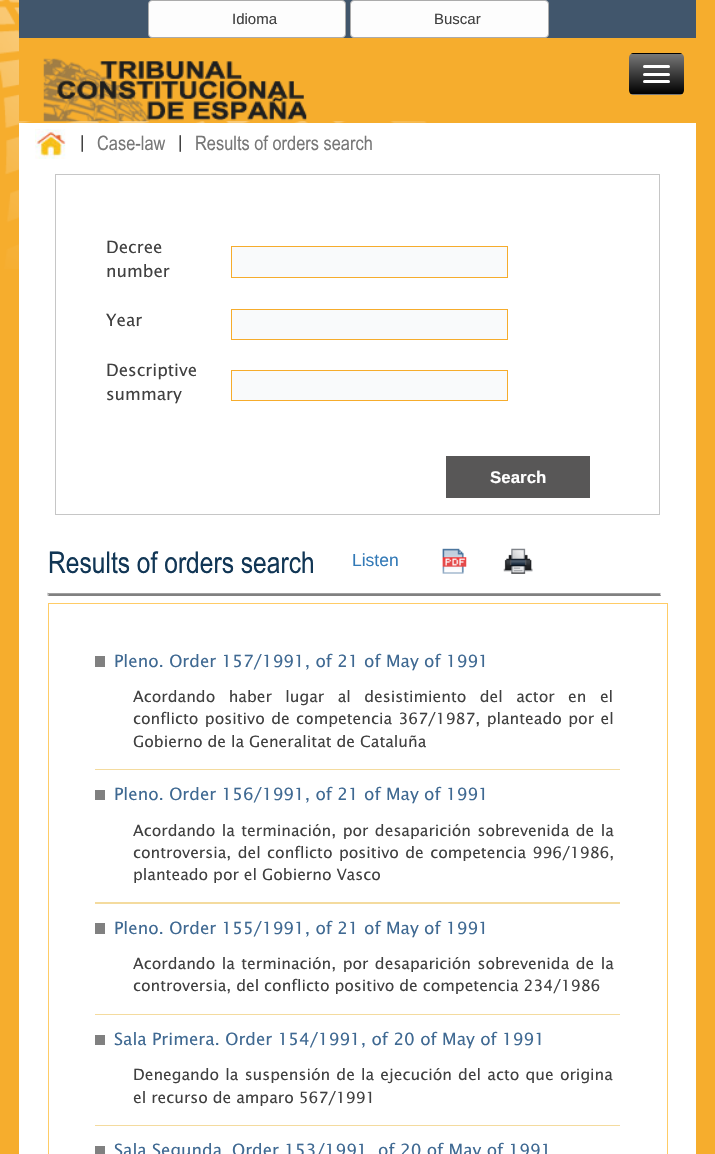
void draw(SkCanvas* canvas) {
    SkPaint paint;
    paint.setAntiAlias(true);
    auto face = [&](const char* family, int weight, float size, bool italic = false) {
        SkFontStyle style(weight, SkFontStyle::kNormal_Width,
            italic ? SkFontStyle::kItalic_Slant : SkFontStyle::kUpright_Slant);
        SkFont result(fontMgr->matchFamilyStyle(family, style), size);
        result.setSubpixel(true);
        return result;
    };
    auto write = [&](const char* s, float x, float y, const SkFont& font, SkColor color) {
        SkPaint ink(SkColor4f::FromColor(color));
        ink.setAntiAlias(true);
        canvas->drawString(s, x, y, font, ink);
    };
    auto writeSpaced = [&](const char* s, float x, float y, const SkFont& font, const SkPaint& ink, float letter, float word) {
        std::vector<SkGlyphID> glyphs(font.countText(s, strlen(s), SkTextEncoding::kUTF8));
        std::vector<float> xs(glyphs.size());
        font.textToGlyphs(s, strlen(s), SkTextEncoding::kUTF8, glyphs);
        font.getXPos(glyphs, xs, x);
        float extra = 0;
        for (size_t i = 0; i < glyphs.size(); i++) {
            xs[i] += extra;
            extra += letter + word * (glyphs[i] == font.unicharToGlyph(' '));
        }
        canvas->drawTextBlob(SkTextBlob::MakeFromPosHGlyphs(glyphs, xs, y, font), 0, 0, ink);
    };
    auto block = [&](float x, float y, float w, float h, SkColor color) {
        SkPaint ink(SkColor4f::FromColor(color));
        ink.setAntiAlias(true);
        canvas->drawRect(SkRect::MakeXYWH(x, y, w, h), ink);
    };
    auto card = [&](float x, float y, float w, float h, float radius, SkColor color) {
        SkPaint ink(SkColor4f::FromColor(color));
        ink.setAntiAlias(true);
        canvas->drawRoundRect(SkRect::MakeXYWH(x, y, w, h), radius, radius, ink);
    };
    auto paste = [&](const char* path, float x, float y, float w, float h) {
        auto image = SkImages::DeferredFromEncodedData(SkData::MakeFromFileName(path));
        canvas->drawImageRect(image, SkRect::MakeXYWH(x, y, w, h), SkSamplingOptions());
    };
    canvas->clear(SkColorSetRGB(246, 173, 45));
    paste("pic1.png", 0, 0, 427, 269);
    block(19, 38, 408, 83, SkColorSetRGB(246, 173, 45));
    block(19, 0, 677, 38, SkColorSetRGB(65, 86, 108));
    paint.setColor(SkColorSetRGB(253, 253, 253));
    canvas->drawRoundRect(SkRect::MakeXYWH(148.5f, 0.5f, 197, 37), 3.5f, 3.5f, paint);
    paint.setStyle(SkPaint::kStroke_Style);
    paint.setStrokeWidth(1);
    paint.setColor(SkColorSetRGB(171, 171, 171));
    canvas->drawRoundRect(SkRect::MakeXYWH(148.5f, 0.5f, 197, 37), 3.5f, 3.5f, paint);
    auto kFont1 = face("Liberation Sans", 400, 15);
    write("Idioma", 232, 24, kFont1, SkColorSetRGB(64, 64, 64));
    paint.setStyle(SkPaint::kFill_Style);
    paint.setColor(SkColorSetRGB(253, 253, 253));
    canvas->drawRoundRect(SkRect::MakeXYWH(350.5f, 0.5f, 198, 37), 3.5f, 3.5f, paint);
    paint.setStyle(SkPaint::kStroke_Style);
    paint.setColor(SkColorSetRGB(171, 171, 171));
    canvas->drawRoundRect(SkRect::MakeXYWH(350.5f, 0.5f, 198, 37), 3.5f, 3.5f, paint);
    write("Buscar", 434, 24, kFont1, SkColorSetRGB(64, 64, 64));
    paste("pic2.png", 43, 58, 264, 64);
    canvas->save();
    canvas->clipPath(SkPathBuilder().moveTo(634, 53).lineTo(679, 53).cubicTo(682, 53, 684, 55, 684, 58).lineTo(684, 90).cubicTo(684, 93, 682, 95, 679, 95).lineTo(634, 95).cubicTo(631, 95, 629, 93, 629, 90).lineTo(629, 58).cubicTo(629, 55, 631, 53, 634, 53).close().detach(), true);
    paint.setStyle(SkPaint::kFill_Style);
    {
        const SkColor colors[] = {SkColorSetRGB(119, 119, 119), SK_ColorBLACK};
        const float stops[] = {0, 1};
        const SkPoint ends[] = {{656, 14}, {656, 54}};
        paint.setShader(SkGradientShader::MakeLinear(ends, colors, stops, 2, SkTileMode::kClamp));
        paint.setAlpha(255);
    }
    canvas->drawRect(SkRect::MakeXYWH(629, 53, 55, 1), paint);
    {
        const SkColor colors[] = {SkColorSetRGB(119, 119, 119), SK_ColorBLACK};
        const float stops[] = {0, 1};
        const SkPoint ends[] = {{656, 54}, {656, 94}};
        paint.setShader(SkGradientShader::MakeLinear(ends, colors, stops, 2, SkTileMode::kClamp));
        paint.setAlpha(255);
    }
    canvas->drawRect(SkRect::MakeXYWH(629, 54, 55, 40), paint);
    {
        const SkColor colors[] = {SkColorSetRGB(119, 119, 119), SK_ColorBLACK};
        const float stops[] = {0, 1};
        const SkPoint ends[] = {{656, 94}, {656, 134}};
        paint.setShader(SkGradientShader::MakeLinear(ends, colors, stops, 2, SkTileMode::kClamp));
        paint.setAlpha(255);
    }
    canvas->drawRect(SkRect::MakeXYWH(629, 94, 55, 1), paint);
    canvas->restore();
    card(643, 65, 27, 3, 1.5f, SK_ColorWHITE);
    card(643, 73, 27, 3, 1.5f, SK_ColorWHITE);
    card(643, 80, 27, 3, 1.5f, SK_ColorWHITE);
    block(19, 123, 677, 1031, SK_ColorWHITE);
    paste("pic3.png", 35, 129, 31, 30);
    auto kFont2 = face("Liberation Sans", 400, 17.5f);
    write("|", 80, 148, kFont2, SkColorSetRGB(64, 64, 64));
    auto kFont3 = face("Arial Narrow", 400, 20);
    write("Case-law", 97, 150, kFont3, SkColorSetRGB(119, 119, 119));
    write("|", 178, 148, kFont2, SkColorSetRGB(64, 64, 64));
    write("Results of orders search", 195, 150, kFont3, SkColorSetRGB(119, 119, 119));
    paint.setStyle(SkPaint::kStroke_Style);
    paint.setShader(nullptr);
    paint.setColor(SkColorSetRGB(198, 198, 198));
    canvas->drawRect(SkRect::MakeXYWH(55.5f, 174.5f, 604, 340), paint);
    auto kFont4 = face("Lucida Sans", 400, 16.9f);
    write("Decree", 106, 253, kFont4, SkColorSetRGB(64, 64, 64));
    write("number", 106, 277, kFont4, SkColorSetRGB(64, 64, 64));
    paint.setStyle(SkPaint::kFill_Style);
    paint.setColor(SkColorSetRGB(249, 250, 251));
    canvas->drawRect(SkRect::MakeXYWH(231.5f, 246.5f, 276, 31), paint);
    paint.setStyle(SkPaint::kStroke_Style);
    paint.setColor(SkColorSetRGB(246, 172, 44));
    canvas->drawRect(SkRect::MakeXYWH(231.5f, 246.5f, 276, 31), paint);
    write("Year", 106, 326, kFont4, SkColorSetRGB(64, 64, 64));
    paint.setStyle(SkPaint::kFill_Style);
    paint.setColor(SkColorSetRGB(249, 250, 251));
    canvas->drawRect(SkRect::MakeXYWH(231.5f, 309.5f, 276, 30), paint);
    paint.setStyle(SkPaint::kStroke_Style);
    paint.setColor(SkColorSetRGB(246, 172, 44));
    canvas->drawRect(SkRect::MakeXYWH(231.5f, 309.5f, 276, 30), paint);
    write("Descriptive", 106, 376, kFont4, SkColorSetRGB(64, 64, 64));
    write("summary", 106, 400, kFont4, SkColorSetRGB(64, 64, 64));
    paint.setStyle(SkPaint::kFill_Style);
    paint.setColor(SkColorSetRGB(249, 250, 251));
    canvas->drawRect(SkRect::MakeXYWH(231.5f, 370.5f, 276, 30), paint);
    paint.setStyle(SkPaint::kStroke_Style);
    paint.setColor(SkColorSetRGB(246, 172, 44));
    canvas->drawRect(SkRect::MakeXYWH(231.5f, 370.5f, 276, 30), paint);
    block(446, 456, 144, 42, SkColorSetRGB(88, 87, 87));
    auto kFont5 = face("Liberation Sans", 700, 16.9f);
    write("Search", 490, 483, kFont5, SK_ColorWHITE);
    auto kFont6 = face("Arial Narrow", 400, 30);
    write("Results of orders search", 48, 573, kFont6, SkColorSetRGB(17, 54, 85));
    write("Listen", 352, 566, kFont2, SkColorSetRGB(51, 122, 183));
    paste("pic4.png", 442, 548, 25, 26);
    paste("pic5.png", 503, 548, 30, 26);
    block(48, 593, 613, 1, SkColorSetRGB(159, 159, 159));
    paint.setStyle(SkPaint::kFill_Style);
    paint.setColor(SkColorSetRGB(238, 238, 238));
    canvas->drawPath(SkPathBuilder().moveTo(661, 592.5f).lineTo(661, 596).lineTo(660, 594).close().detach(), paint);
    paint.setColor(SkColorSetRGB(128, 128, 128));
    canvas->drawPath(SkPathBuilder().moveTo(661, 596).lineTo(48, 596).lineTo(49, 594).lineTo(660, 594).close().detach(), paint);
    paint.setColor(SkColorSetRGB(159, 159, 159));
    canvas->drawPath(SkPathBuilder().moveTo(47.5f, 596).lineTo(47.5f, 592.5f).lineTo(49, 594).close().detach(), paint);
    paint.setStyle(SkPaint::kStroke_Style);
    paint.setColor(SkColorSetRGB(255, 204, 102));
    canvas->drawRect(SkRect::MakeXYWH(48.5f, 603.5f, 619, 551), paint);
    block(95, 769, 525, 1, SkColorSetRGB(244, 219, 158));
    block(95, 656, 10, 11, SkColorSetRGB(128, 128, 128));
    write("Pleno. Order 157/1991, of 21 of May of 1991", 114, 667, kFont4, SkColorSetRGB(63, 105, 146));
    auto kFont7 = face("Lucida Sans", 400, 15.6f);
    paint.setStyle(SkPaint::kFill_Style);
    paint.setColor(SkColorSetRGB(64, 64, 64));
    writeSpaced("Acordando haber lugar al desistimiento del actor en el", 133, 702, kFont7, paint, 0, 8.5f);
    writeSpaced("conflicto positivo de competencia 367/1987, planteado por el", 133, 724, kFont7, paint, 0, 1.5f);
    write("Gobierno de la Generalitat de Cataluña", 133, 747, kFont7, SkColorSetRGB(64, 64, 64));
    block(95, 902, 525, 2, SkColorSetRGB(244, 219, 158));
    block(95, 790, 10, 10, SkColorSetRGB(128, 128, 128));
    write("Pleno. Order 156/1991, of 21 of May of 1991", 114, 800, kFont4, SkColorSetRGB(63, 105, 146));
    writeSpaced("Acordando la terminación, por desaparición sobrevenida de la", 133, 836, kFont7, paint, 0, 1.5f);
    writeSpaced("controversia, del conflicto positivo de competencia 996/1986,", 133, 858, kFont7, paint, 0, 1.5f);
    write("planteado por el Gobierno Vasco", 133, 880, kFont7, SkColorSetRGB(64, 64, 64));
    block(95, 1014, 525, 1, SkColorSetRGB(244, 219, 158));
    block(95, 923, 10, 11, SkColorSetRGB(128, 128, 128));
    write("Pleno. Order 155/1991, of 21 of May of 1991", 114, 934, kFont4, SkColorSetRGB(63, 105, 146));
    writeSpaced("Acordando la terminación, por desaparición sobrevenida de la", 133, 969, kFont7, paint, 0, 1.5f);
    write("controversia, del conflicto positivo de competencia 234/1986", 133, 991, kFont7, SkColorSetRGB(64, 64, 64));
    block(95, 1125, 525, 1, SkColorSetRGB(244, 219, 158));
    block(95, 1035, 10, 10, SkColorSetRGB(128, 128, 128));
    write("Sala Primera. Order 154/1991, of 20 of May of 1991", 114, 1045, kFont4, SkColorSetRGB(63, 105, 146));
    writeSpaced("Denegando la suspensión de la ejecución del acto que origina", 133, 1080, kFont7, paint, 0, 1.25f);
    write("el recurso de amparo 567/1991", 133, 1103, kFont7, SkColorSetRGB(64, 64, 64));
    block(95, 1146, 10, 8, SkColorSetRGB(128, 128, 128));
    write("Sala Segunda", 114, 1156, kFont4, SkColorSetRGB(63, 105, 146));
    write("Order 153/1991", 232, 1156, kFont4, SkColorSetRGB(63, 105, 146));
    write("of 20 of May of 1991", 378, 1156, kFont4, SkColorSetRGB(63, 105, 146));
}
